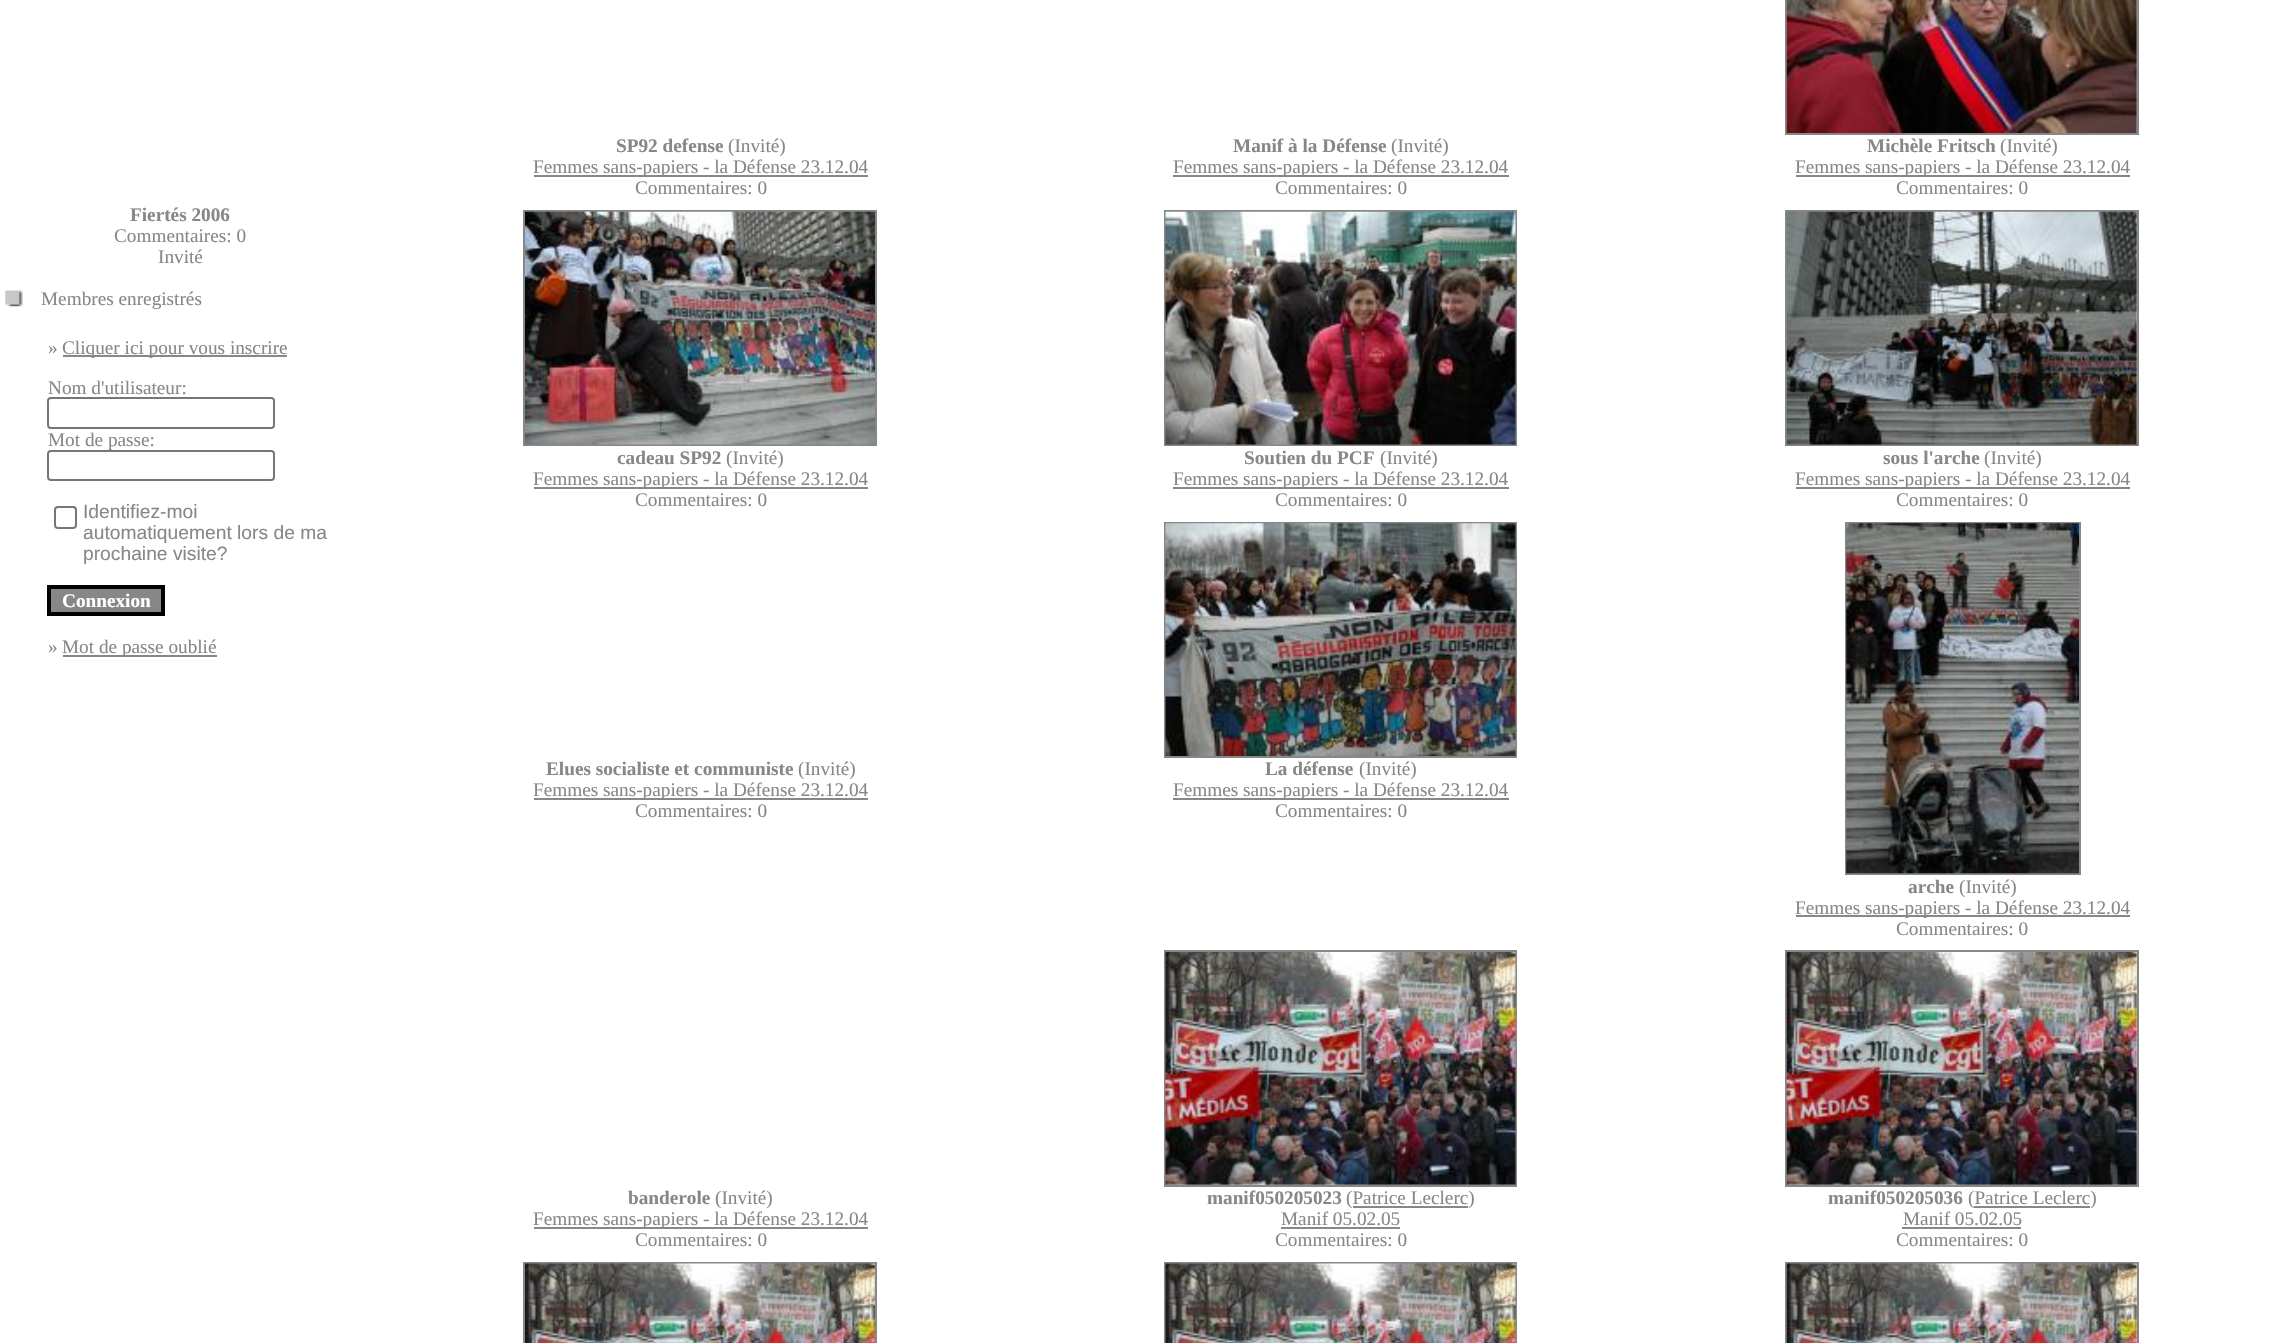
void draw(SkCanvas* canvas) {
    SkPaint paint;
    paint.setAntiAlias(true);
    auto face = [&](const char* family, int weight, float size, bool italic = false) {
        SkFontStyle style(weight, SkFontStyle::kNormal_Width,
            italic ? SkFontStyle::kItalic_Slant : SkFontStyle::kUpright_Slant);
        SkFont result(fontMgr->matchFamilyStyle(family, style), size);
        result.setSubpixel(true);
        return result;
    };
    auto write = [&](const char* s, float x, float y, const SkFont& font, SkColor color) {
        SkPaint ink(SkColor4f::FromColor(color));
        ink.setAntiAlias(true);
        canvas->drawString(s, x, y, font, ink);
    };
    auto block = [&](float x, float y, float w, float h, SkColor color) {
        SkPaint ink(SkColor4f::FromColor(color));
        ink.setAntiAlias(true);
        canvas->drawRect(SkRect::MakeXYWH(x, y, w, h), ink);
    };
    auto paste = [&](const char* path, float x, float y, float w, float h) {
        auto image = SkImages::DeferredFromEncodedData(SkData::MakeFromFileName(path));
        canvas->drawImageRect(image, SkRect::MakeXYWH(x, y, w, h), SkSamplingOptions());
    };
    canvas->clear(SK_ColorWHITE);
    auto kFont1 = face("Liberation Serif", 700, 19.25f);
    write("Fiertés 2006", 130, 221, kFont1, SkColorSetRGB(135, 135, 135));
    auto kFont2 = face("Liberation Serif", 400, 19.25f);
    write("Commentaires: 0", 114, 242, kFont2, SkColorSetRGB(135, 135, 135));
    write("Invité", 158, 263, kFont2, SkColorSetRGB(135, 135, 135));
    paste("pic1.png", 5, 290, 18, 17);
    write("Membres enregistrés", 41, 305, kFont2, SkColorSetRGB(135, 135, 135));
    write("»", 48, 354, kFont2, SkColorSetRGB(135, 135, 135));
    block(63, 355, 224, 2, SkColorSetRGB(135, 135, 135));
    write("Cliquer ici pour vous inscrire", 62, 354, kFont2, SkColorSetRGB(135, 135, 135));
    write("Nom d'utilisateur:", 48, 394, kFont2, SkColorSetRGB(135, 135, 135));
    paint.setStyle(SkPaint::kStroke_Style);
    paint.setStrokeWidth(2);
    paint.setColor(SkColorSetRGB(118, 118, 118));
    canvas->drawRoundRect(SkRect::MakeXYWH(48, 398, 226, 30), 3, 3, paint);
    write("Mot de passe:", 48, 446, kFont2, SkColorSetRGB(135, 135, 135));
    paint.setStyle(SkPaint::kFill_Style);
    paint.setColor(SK_ColorWHITE);
    canvas->drawRoundRect(SkRect::MakeXYWH(48, 451, 226, 29), 3, 3, paint);
    paint.setStyle(SkPaint::kStroke_Style);
    paint.setColor(SkColorSetRGB(118, 118, 118));
    canvas->drawRoundRect(SkRect::MakeXYWH(48, 451, 226, 29), 3, 3, paint);
    canvas->drawRoundRect(SkRect::MakeXYWH(55, 507, 21, 21), 3, 3, paint);
    auto kFont3 = face("Liberation Sans", 400, 19.25f);
    write("Identifiez-moi", 83, 518, kFont3, SkColorSetRGB(135, 135, 135));
    write("automatiquement lors de ma", 83, 539, kFont3, SkColorSetRGB(135, 135, 135));
    write("prochaine visite?", 83, 560, kFont3, SkColorSetRGB(135, 135, 135));
    paint.setStyle(SkPaint::kFill_Style);
    paint.setColor(SkColorSetRGB(135, 135, 135));
    canvas->drawRect(SkRect::MakeXYWH(49, 587, 114, 27), paint);
    paint.setStyle(SkPaint::kStroke_Style);
    paint.setStrokeWidth(4);
    paint.setColor(SK_ColorBLACK);
    canvas->drawRect(SkRect::MakeXYWH(49, 587, 114, 27), paint);
    write("Connexion", 62, 607, kFont1, SK_ColorWHITE);
    write("»", 48, 653, kFont2, SkColorSetRGB(135, 135, 135));
    block(63, 655, 154, 2, SkColorSetRGB(135, 135, 135));
    write("Mot de passe oublié", 62, 653, kFont2, SkColorSetRGB(135, 135, 135));
    write("SP92 defense", 616, 152, kFont1, SkColorSetRGB(135, 135, 135));
    write("(Invité)", 728, 152, kFont2, SkColorSetRGB(135, 135, 135));
    block(534, 175, 334, 2, SkColorSetRGB(135, 135, 135));
    write("Femmes sans-papiers - la Défense 23.12.04", 533, 173, kFont2, SkColorSetRGB(135, 135, 135));
    write("Commentaires: 0", 635, 194, kFont2, SkColorSetRGB(135, 135, 135));
    write("Manif à la Défense", 1233, 152, kFont1, SkColorSetRGB(135, 135, 135));
    write("(Invité)", 1391, 152, kFont2, SkColorSetRGB(135, 135, 135));
    block(1173, 175, 336, 2, SkColorSetRGB(135, 135, 135));
    write("Femmes sans-papiers - la Défense 23.12.04", 1173, 173, kFont2, SkColorSetRGB(135, 135, 135));
    write("Commentaires: 0", 1275, 194, kFont2, SkColorSetRGB(135, 135, 135));
    paint.setStrokeWidth(2);
    paint.setColor(SkColorSetRGB(135, 135, 135));
    canvas->drawRect(SkRect::MakeXYWH(1786, -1, 352, 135), paint);
    paste("pic2.png", 1786, 0, 351, 133);
    write("Michèle Fritsch", 1867, 152, kFont1, SkColorSetRGB(135, 135, 135));
    write("(Invité)", 2000, 152, kFont2, SkColorSetRGB(135, 135, 135));
    block(1796, 175, 334, 2, SkColorSetRGB(135, 135, 135));
    write("Femmes sans-papiers - la Défense 23.12.04", 1795, 173, kFont2, SkColorSetRGB(135, 135, 135));
    write("Commentaires: 0", 1896, 194, kFont2, SkColorSetRGB(135, 135, 135));
    canvas->drawRect(SkRect::MakeXYWH(524, 211, 352, 234), paint);
    paste("pic3.png", 525, 211, 350, 234);
    write("cadeau SP92", 617, 464, kFont1, SkColorSetRGB(135, 135, 135));
    write("(Invité)", 726, 464, kFont2, SkColorSetRGB(135, 135, 135));
    block(534, 487, 334, 2, SkColorSetRGB(135, 135, 135));
    write("Femmes sans-papiers - la Défense 23.12.04", 533, 485, kFont2, SkColorSetRGB(135, 135, 135));
    write("Commentaires: 0", 635, 506, kFont2, SkColorSetRGB(135, 135, 135));
    canvas->drawRect(SkRect::MakeXYWH(1165, 211, 351, 234), paint);
    paste("pic4.png", 1165, 211, 351, 234);
    write("Soutien du PCF", 1244, 464, kFont1, SkColorSetRGB(135, 135, 135));
    write("(Invité)", 1380, 464, kFont2, SkColorSetRGB(135, 135, 135));
    block(1173, 487, 336, 2, SkColorSetRGB(135, 135, 135));
    write("Femmes sans-papiers - la Défense 23.12.04", 1173, 485, kFont2, SkColorSetRGB(135, 135, 135));
    write("Commentaires: 0", 1275, 506, kFont2, SkColorSetRGB(135, 135, 135));
    canvas->drawRect(SkRect::MakeXYWH(1786, 211, 352, 234), paint);
    paste("pic5.png", 1786, 211, 351, 234);
    write("sous l'arche", 1883, 464, kFont1, SkColorSetRGB(135, 135, 135));
    write("(Invité)", 1984, 464, kFont2, SkColorSetRGB(135, 135, 135));
    block(1796, 487, 334, 2, SkColorSetRGB(135, 135, 135));
    write("Femmes sans-papiers - la Défense 23.12.04", 1795, 485, kFont2, SkColorSetRGB(135, 135, 135));
    write("Commentaires: 0", 1896, 506, kFont2, SkColorSetRGB(135, 135, 135));
    write("Elues socialiste et communiste", 546, 775, kFont1, SkColorSetRGB(135, 135, 135));
    write("(Invité)", 798, 775, kFont2, SkColorSetRGB(135, 135, 135));
    block(534, 798, 334, 2, SkColorSetRGB(135, 135, 135));
    write("Femmes sans-papiers - la Défense 23.12.04", 533, 796, kFont2, SkColorSetRGB(135, 135, 135));
    write("Commentaires: 0", 635, 817, kFont2, SkColorSetRGB(135, 135, 135));
    canvas->drawRect(SkRect::MakeXYWH(1165, 523, 351, 234), paint);
    paste("pic6.png", 1165, 523, 351, 233);
    write("La défense", 1265, 775, kFont1, SkColorSetRGB(135, 135, 135));
    write("(Invité)", 1359, 775, kFont2, SkColorSetRGB(135, 135, 135));
    block(1173, 798, 336, 2, SkColorSetRGB(135, 135, 135));
    write("Femmes sans-papiers - la Défense 23.12.04", 1173, 796, kFont2, SkColorSetRGB(135, 135, 135));
    write("Commentaires: 0", 1275, 817, kFont2, SkColorSetRGB(135, 135, 135));
    canvas->drawRect(SkRect::MakeXYWH(1846, 523, 234, 351), paint);
    paste("pic7.png", 1846, 523, 233, 351);
    write("arche", 1908, 893, kFont1, SkColorSetRGB(135, 135, 135));
    write("(Invité)", 1959, 893, kFont2, SkColorSetRGB(135, 135, 135));
    block(1796, 915, 334, 2, SkColorSetRGB(135, 135, 135));
    write("Femmes sans-papiers - la Défense 23.12.04", 1795, 914, kFont2, SkColorSetRGB(135, 135, 135));
    write("Commentaires: 0", 1896, 935, kFont2, SkColorSetRGB(135, 135, 135));
    write("banderole", 628, 1204, kFont1, SkColorSetRGB(135, 135, 135));
    write("(Invité)", 715, 1204, kFont2, SkColorSetRGB(135, 135, 135));
    block(534, 1227, 334, 2, SkColorSetRGB(135, 135, 135));
    write("Femmes sans-papiers - la Défense 23.12.04", 533, 1225, kFont2, SkColorSetRGB(135, 135, 135));
    write("Commentaires: 0", 635, 1246, kFont2, SkColorSetRGB(135, 135, 135));
    canvas->drawRect(SkRect::MakeXYWH(1165, 951, 351, 235), paint);
    paste("pic8.png", 1165, 952, 351, 233);
    write("manif050205023", 1207, 1204, kFont1, SkColorSetRGB(135, 135, 135));
    write("(Patrice Leclerc)", 1346, 1204, kFont2, SkColorSetRGB(135, 135, 135));
    block(1353, 1206, 115, 2, SkColorSetRGB(135, 135, 135));
    write("Manif 05.02.05", 1281, 1225, kFont2, SkColorSetRGB(135, 135, 135));
    block(1281, 1227, 119, 2, SkColorSetRGB(135, 135, 135));
    write("Commentaires: 0", 1275, 1246, kFont2, SkColorSetRGB(135, 135, 135));
    canvas->drawRect(SkRect::MakeXYWH(1786, 951, 352, 235), paint);
    paste("pic9.png", 1786, 952, 351, 233);
    write("manif050205036", 1828, 1204, kFont1, SkColorSetRGB(135, 135, 135));
    write("(Patrice Leclerc)", 1968, 1204, kFont2, SkColorSetRGB(135, 135, 135));
    block(1974, 1206, 116, 2, SkColorSetRGB(135, 135, 135));
    write("Manif 05.02.05", 1903, 1225, kFont2, SkColorSetRGB(135, 135, 135));
    block(1902, 1227, 119, 2, SkColorSetRGB(135, 135, 135));
    write("Commentaires: 0", 1896, 1246, kFont2, SkColorSetRGB(135, 135, 135));
    canvas->drawRect(SkRect::MakeXYWH(524, 1263, 352, 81), paint);
    paste("pic10.png", 525, 1263, 350, 80);
    canvas->drawRect(SkRect::MakeXYWH(1165, 1263, 351, 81), paint);
    paste("pic11.png", 1165, 1263, 351, 80);
    canvas->drawRect(SkRect::MakeXYWH(1786, 1263, 352, 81), paint);
    paste("pic12.png", 1786, 1263, 351, 80);
}
